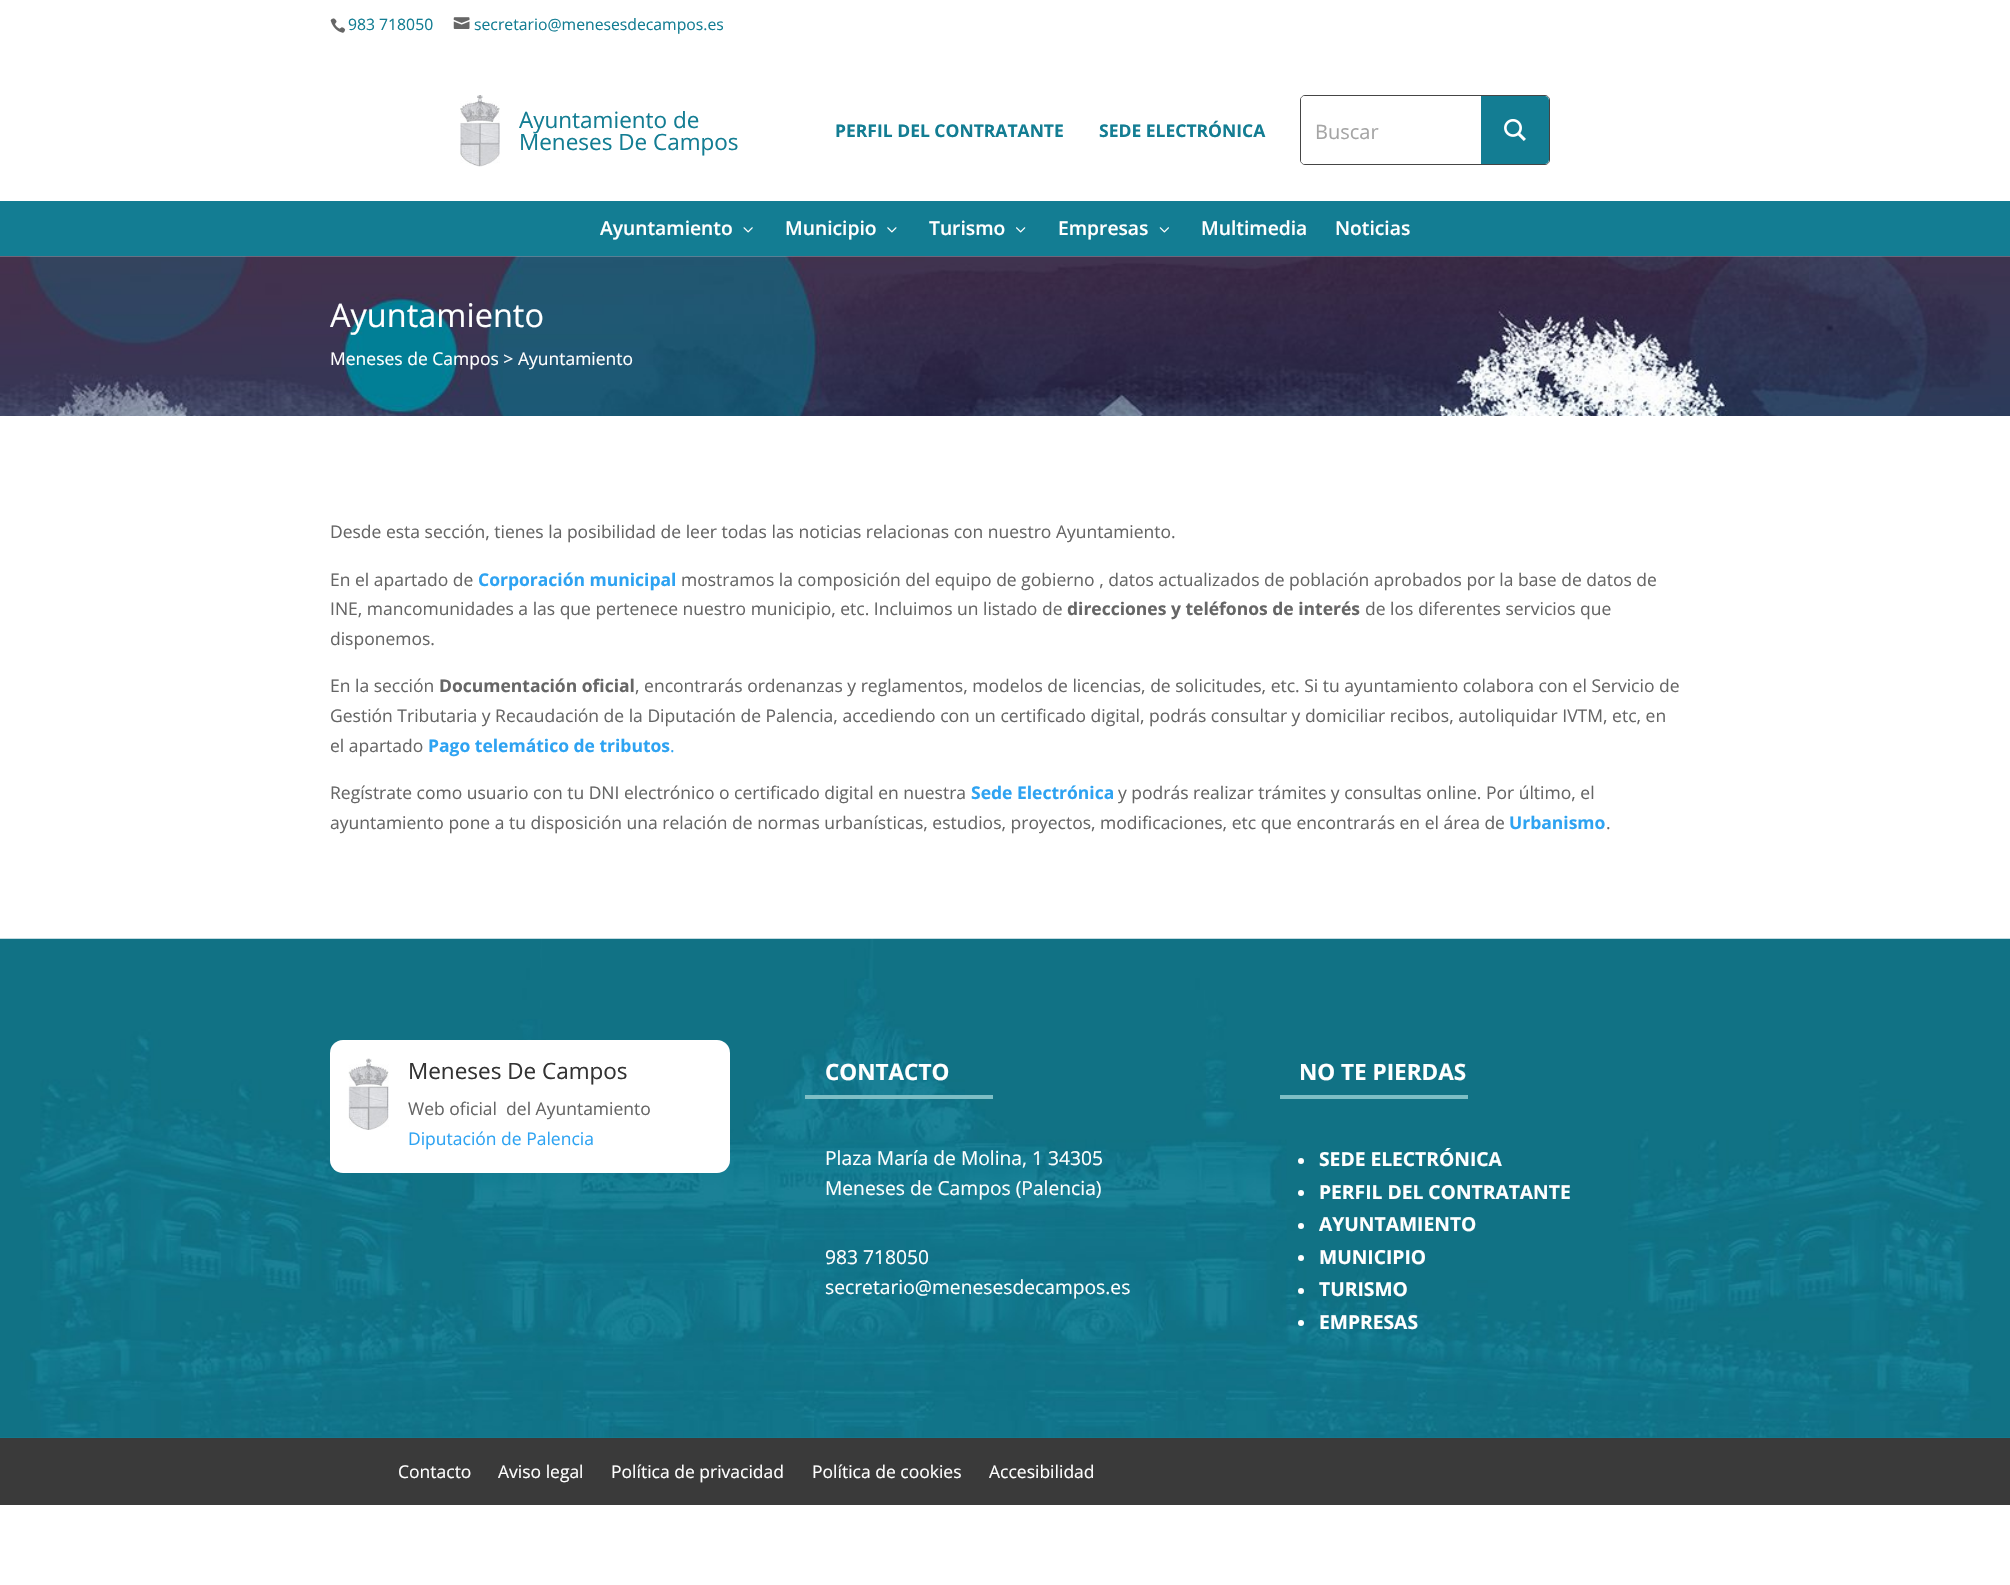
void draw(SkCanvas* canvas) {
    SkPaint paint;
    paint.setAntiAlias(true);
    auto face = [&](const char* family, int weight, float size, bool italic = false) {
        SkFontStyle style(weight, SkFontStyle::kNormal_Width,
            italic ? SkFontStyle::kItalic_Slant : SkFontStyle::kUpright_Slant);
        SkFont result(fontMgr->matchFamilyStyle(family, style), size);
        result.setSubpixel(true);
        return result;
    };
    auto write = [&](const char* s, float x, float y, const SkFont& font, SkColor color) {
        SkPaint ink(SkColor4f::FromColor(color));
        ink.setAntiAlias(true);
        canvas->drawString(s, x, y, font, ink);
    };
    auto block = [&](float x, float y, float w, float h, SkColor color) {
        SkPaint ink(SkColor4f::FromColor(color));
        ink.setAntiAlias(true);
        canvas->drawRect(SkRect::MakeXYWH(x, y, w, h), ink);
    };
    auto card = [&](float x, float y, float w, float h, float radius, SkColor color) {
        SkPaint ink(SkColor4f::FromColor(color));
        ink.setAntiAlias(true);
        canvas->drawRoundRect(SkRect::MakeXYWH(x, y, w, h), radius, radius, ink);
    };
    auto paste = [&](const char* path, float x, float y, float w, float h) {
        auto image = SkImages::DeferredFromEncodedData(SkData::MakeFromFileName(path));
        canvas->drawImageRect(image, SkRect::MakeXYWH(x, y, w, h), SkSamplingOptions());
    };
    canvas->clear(SK_ColorWHITE);
    paste("pic1.png", 330, 18, 16, 15);
    auto kFont1 = face("Open Sans", 400, 15.75f);
    write("983 718050", 348, 30, kFont1, SkColorSetRGB(19, 125, 147));
    paste("pic2.png", 453, 17, 17, 12);
    write("secretario@menesesdecampos.es", 474, 30, kFont1, SkColorSetRGB(19, 125, 147));
    paste("pic3.png", 460, 95, 40, 72);
    auto kFont2 = face("Open Sans", 400, 22.5f);
    write("Ayuntamiento de", 519, 128, kFont2, SkColorSetRGB(19, 125, 147));
    write("Meneses De Campos", 519, 150, kFont2, SkColorSetRGB(19, 125, 147));
    auto kFont3 = face("Open Sans", 700, 17.5f);
    write("PERFIL DEL CONTRATANTE", 835, 137, kFont3, SkColorSetRGB(19, 125, 147));
    write("SEDE ELECTRÓNICA", 1099, 137, kFont3, SkColorSetRGB(19, 125, 147));
    canvas->save();
    canvas->clipPath(SkPathBuilder().moveTo(1305, 95).lineTo(1545, 95).cubicTo(1548, 95, 1550, 97, 1550, 100).lineTo(1550, 160).cubicTo(1550, 163, 1548, 165, 1545, 165).lineTo(1305, 165).cubicTo(1302, 165, 1300, 163, 1300, 160).lineTo(1300, 100).cubicTo(1300, 97, 1302, 95, 1305, 95).close().detach(), true);
    {
        const SkColor colors[] = {SkColorSetRGB(255, 252, 252), SK_ColorWHITE};
        const float stops[] = {0, 1};
        SkMatrix m = SkMatrix::Translate(1425, 130).preScale(175, 48);
        paint.setShader(SkGradientShader::MakeRadial({0, 0}, 1, colors, stops, 2, SkTileMode::kClamp, 0, &m));
        paint.setAlpha(255);
    }
    canvas->drawRect(SkRect::MakeXYWH(1301, 96, 248, 68), paint);
    canvas->restore();
    paint.setStyle(SkPaint::kStroke_Style);
    paint.setStrokeWidth(1);
    paint.setShader(nullptr);
    paint.setColor(SkColorSetARGB(186, 0, 0, 0));
    canvas->drawRoundRect(SkRect::MakeXYWH(1300.5f, 95.5f, 249, 69), 4.5f, 4.5f, paint);
    card(1301, 96, 248, 68, 4, SK_ColorWHITE);
    auto kFont4 = face("Open Sans", 400, 20);
    write("Buscar", 1315, 139, kFont4, SkColorSetRGB(165, 165, 165));
    paint.setStyle(SkPaint::kFill_Style);
    paint.setColor(SkColorSetRGB(19, 125, 147));
    canvas->drawPath(SkPathBuilder().moveTo(1481, 96).lineTo(1545, 96).cubicTo(1547, 96, 1549, 98, 1549, 100).lineTo(1549, 160).cubicTo(1549, 162, 1547, 164, 1545, 164).lineTo(1481, 164).close().detach(), paint);
    paste("pic4.png", 1504, 119, 22, 22);
    block(0, 201, 2010, 55, SkColorSetRGB(19, 125, 147));
    auto kFont5 = face("Open Sans", 600, 19.25f);
    write("Ayuntamiento", 600, 235, kFont5, SK_ColorWHITE);
    paste("pic5.png", 743, 227, 10, 6);
    write("Municipio", 785, 235, kFont5, SK_ColorWHITE);
    paste("pic6.png", 887, 227, 10, 6);
    write("Turismo", 929, 235, kFont5, SK_ColorWHITE);
    paste("pic7.png", 1016, 227, 10, 6);
    write("Empresas", 1058, 235, kFont5, SK_ColorWHITE);
    paste("pic8.png", 1159, 227, 10, 6);
    write("Multimedia", 1201, 235, kFont5, SK_ColorWHITE);
    write("Noticias", 1335, 235, kFont5, SK_ColorWHITE);
    paste("pic9.png", 0, 256, 2010, 160);
    auto kFont6 = face("Open Sans", 400, 32.5f);
    write("Ayuntamiento", 330, 327, kFont6, SK_ColorWHITE);
    auto kFont7 = face("Open Sans", 400, 17.5f);
    write("Meneses de Campos > Ayuntamiento", 330, 365, kFont7, SK_ColorWHITE);
    write("Desde esta sección, tienes la posibilidad de leer todas las noticias relacionas con nuestro Ayuntamiento.", 330, 538, kFont7, SkColorSetRGB(102, 102, 102));
    write("En el apartado de", 330, 586, kFont7, SkColorSetRGB(102, 102, 102));
    write("Corporación municipal", 478, 586, kFont3, SkColorSetRGB(46, 163, 242));
    write("mostramos la composición del equipo de gobierno , datos actualizados de población aprobados por la base de datos de", 681, 586, kFont7, SkColorSetRGB(102, 102, 102));
    write("INE, mancomunidades a las que pertenece nuestro municipio, etc. Incluimos un listado de", 330, 615, kFont7, SkColorSetRGB(102, 102, 102));
    write("direcciones y teléfonos de interés", 1067, 615, kFont3, SkColorSetRGB(102, 102, 102));
    write("de los diferentes servicios que", 1365, 615, kFont7, SkColorSetRGB(102, 102, 102));
    write("disponemos.", 330, 645, kFont7, SkColorSetRGB(102, 102, 102));
    write("En la sección", 330, 692, kFont7, SkColorSetRGB(102, 102, 102));
    write("Documentación oficial", 439, 692, kFont3, SkColorSetRGB(102, 102, 102));
    write(", encontrarás ordenanzas y reglamentos, modelos de licencias, de solicitudes, etc. Si tu ayuntamiento colabora con el Servicio de", 635, 692, kFont7, SkColorSetRGB(102, 102, 102));
    write("Gestión Tributaria y Recaudación de la Diputación de Palencia, accediendo con un certificado digital, podrás consultar y domiciliar recibos, autoliquidar IVTM, etc, en", 330, 722, kFont7, SkColorSetRGB(102, 102, 102));
    write("el apartado", 330, 752, kFont7, SkColorSetRGB(102, 102, 102));
    write("Pago telemático de tributos", 428, 752, kFont3, SkColorSetRGB(46, 163, 242));
    write(".", 670, 752, kFont7, SkColorSetRGB(46, 163, 242));
    write("Regístrate como usuario con tu DNI electrónico o certificado digital en nuestra", 330, 799, kFont7, SkColorSetRGB(102, 102, 102));
    write("Sede Electrónica", 971, 799, kFont3, SkColorSetRGB(46, 163, 242));
    write("y podrás realizar trámites y consultas online. Por último, el", 1118, 799, kFont7, SkColorSetRGB(102, 102, 102));
    write("ayuntamiento pone a tu disposición una relación de normas urbanísticas, estudios, proyectos, modificaciones, etc que encontrarás en el área de", 330, 829, kFont7, SkColorSetRGB(102, 102, 102));
    write("Urbanismo", 1509, 829, kFont3, SkColorSetRGB(46, 163, 242));
    write(".", 1606, 829, kFont7, SkColorSetRGB(102, 102, 102));
    block(0, 1437, 2010, 1, SkColorSetRGB(19, 125, 147));
    paste("pic10.png", 0, 938, 2010, 500);
    card(330, 1040, 400, 133, 13, SK_ColorWHITE);
    paste("pic11.png", 348, 1058, 41, 72);
    write("Meneses De Campos", 408, 1079, kFont2, SkColorSetRGB(51, 51, 51));
    write("Web oficial  del Ayuntamiento", 408, 1115, kFont7, SkColorSetRGB(102, 102, 102));
    write("Diputación de Palencia", 408, 1145, kFont7, SkColorSetRGB(46, 163, 242));
    auto kFont8 = face("Open Sans", 700, 22.5f);
    write("CONTACTO", 825, 1080, kFont8, SK_ColorWHITE);
    block(805, 1095, 188, 4, SkColorSetRGB(126, 190, 197));
    auto kFont9 = face("Open Sans", 400, 19.25f);
    write("Plaza María de Molina, 1 34305", 825, 1165, kFont9, SK_ColorWHITE);
    write("Meneses de Campos (Palencia)", 825, 1195, kFont9, SK_ColorWHITE);
    write("983 718050", 825, 1264, kFont9, SK_ColorWHITE);
    write("secretario@menesesdecampos.es", 825, 1294, kFont9, SK_ColorWHITE);
    write("NO TE PIERDAS", 1299, 1080, kFont8, SK_ColorWHITE);
    block(1280, 1095, 188, 4, SkColorSetRGB(126, 190, 197));
    paint.setColor(SK_ColorWHITE);
    canvas->drawCircle(1301, 1161, 3, paint);
    auto kFont10 = face("Open Sans", 700, 19.25f);
    write("SEDE ELECTRÓNICA", 1319, 1166, kFont10, SK_ColorWHITE);
    canvas->drawCircle(1301, 1193, 3, paint);
    write("PERFIL DEL CONTRATANTE", 1319, 1199, kFont10, SK_ColorWHITE);
    canvas->drawCircle(1301, 1226, 3, paint);
    write("AYUNTAMIENTO", 1319, 1231, kFont10, SK_ColorWHITE);
    canvas->drawCircle(1301, 1258, 3, paint);
    write("MUNICIPIO", 1319, 1264, kFont10, SK_ColorWHITE);
    canvas->drawCircle(1301, 1291, 3, paint);
    write("TURISMO", 1319, 1296, kFont10, SK_ColorWHITE);
    canvas->drawCircle(1301, 1323, 3, paint);
    write("EMPRESAS", 1319, 1329, kFont10, SK_ColorWHITE);
    block(0, 1438, 2010, 67, SkColorSetRGB(58, 58, 58));
    write("Contacto", 398, 1478, kFont7, SK_ColorWHITE);
    write("Aviso legal", 498, 1478, kFont7, SK_ColorWHITE);
    write("Política de privacidad", 611, 1478, kFont7, SK_ColorWHITE);
    write("Política de cookies", 812, 1478, kFont7, SK_ColorWHITE);
    write("Accesibilidad", 989, 1478, kFont7, SK_ColorWHITE);
}
